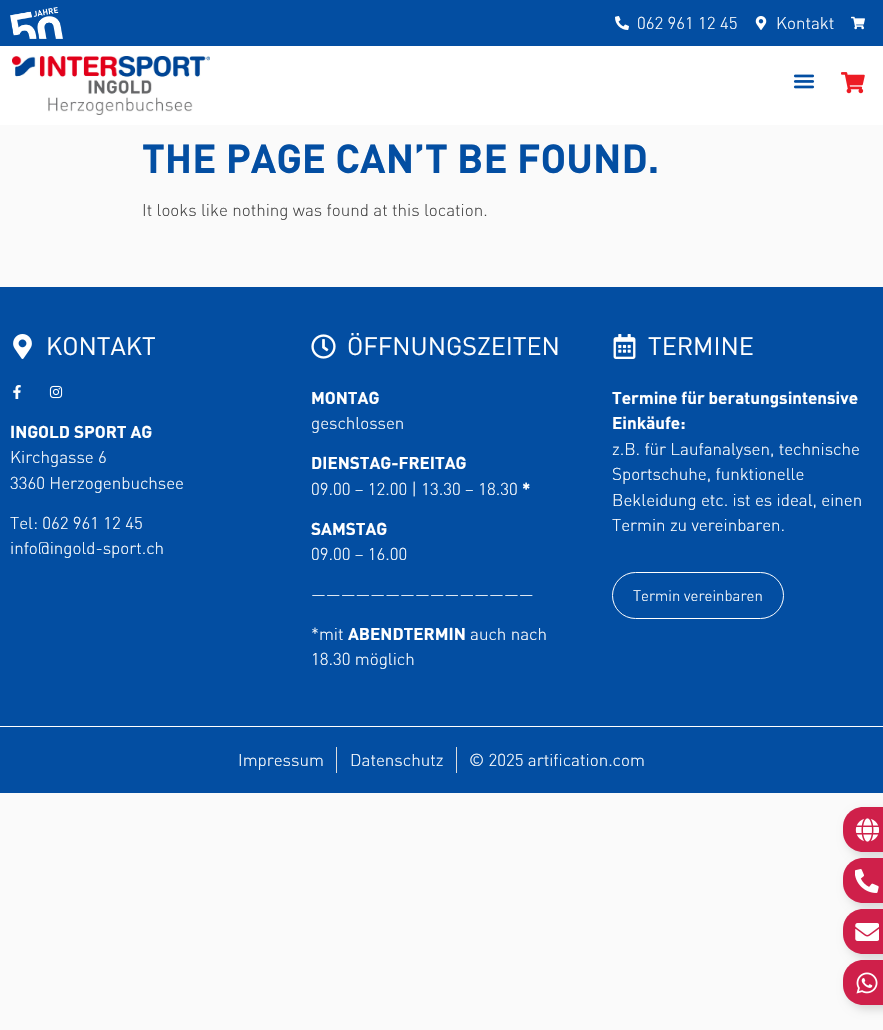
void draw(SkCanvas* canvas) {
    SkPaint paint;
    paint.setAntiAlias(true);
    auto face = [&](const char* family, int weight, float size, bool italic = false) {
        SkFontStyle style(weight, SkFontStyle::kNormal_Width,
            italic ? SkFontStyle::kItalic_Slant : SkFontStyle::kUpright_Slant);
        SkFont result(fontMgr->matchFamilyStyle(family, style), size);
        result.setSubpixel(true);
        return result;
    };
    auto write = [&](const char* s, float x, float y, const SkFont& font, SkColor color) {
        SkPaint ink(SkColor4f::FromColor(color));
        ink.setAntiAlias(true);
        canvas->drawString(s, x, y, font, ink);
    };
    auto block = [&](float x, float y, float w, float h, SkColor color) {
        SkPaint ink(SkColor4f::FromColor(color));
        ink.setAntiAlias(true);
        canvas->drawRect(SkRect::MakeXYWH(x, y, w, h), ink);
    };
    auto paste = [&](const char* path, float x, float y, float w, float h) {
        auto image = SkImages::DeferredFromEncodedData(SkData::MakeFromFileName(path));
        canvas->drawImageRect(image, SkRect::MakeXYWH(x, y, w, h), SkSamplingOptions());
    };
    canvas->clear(SkColorSetRGB(250, 250, 250));
    block(0, 0, 883, 46, SkColorSetRGB(3, 78, 162));
    paste("pic1.png", 10, 7, 53, 32);
    paste("pic2.png", 615, 16, 14, 14);
    auto kFont1 = face("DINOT", 300, 17);
    write("062 961 12 45", 637, 29, kFont1, SK_ColorWHITE);
    paste("pic3.png", 755, 16, 12, 14);
    write("Kontakt", 776, 29, kFont1, SK_ColorWHITE);
    paste("pic4.png", 851, 16, 14, 14);
    block(0, 46, 883, 79, SK_ColorWHITE);
    paste("pic5.png", 12, 56, 198, 59);
    paste("pic6.png", 793, 74, 22, 15);
    paste("pic7.png", 841, 72, 24, 22);
    auto kFont2 = face("DINOT", 700, 40);
    write("THE PAGE CAN’T BE FOUND.", 142, 173, kFont2, SkColorSetRGB(3, 78, 162));
    write("It looks like nothing was found at this location.", 142, 216, kFont1, SkColorSetRGB(68, 68, 68));
    block(0, 287, 883, 439, SkColorSetRGB(3, 78, 162));
    block(0, 726, 883, 1, SK_ColorWHITE);
    paste("pic8.png", 13, 334, 19, 25);
    auto kFont3 = face("DINOT", 400, 25);
    write("KONTAKT", 46, 355, kFont3, SK_ColorWHITE);
    paste("pic9.png", 13, 385, 8, 14);
    paste("pic10.png", 49, 385, 14, 14);
    auto kFont4 = face("DINOT", 700, 17);
    write("INGOLD SPORT AG", 10, 438, kFont4, SK_ColorWHITE);
    write("Kirchgasse 6", 10, 463, kFont1, SK_ColorWHITE);
    write("3360 Herzogenbuchsee", 10, 489, kFont1, SK_ColorWHITE);
    write("Tel: 062 961 12 45", 10, 529, kFont1, SK_ColorWHITE);
    write("info@ingold-sport.ch", 10, 554, kFont1, SK_ColorWHITE);
    paste("pic11.png", 311, 334, 25, 25);
    write("ÖFFNUNGSZEITEN", 347, 355, kFont3, SK_ColorWHITE);
    write("MONTAG", 311, 404, kFont4, SK_ColorWHITE);
    write("geschlossen", 311, 429, kFont1, SK_ColorWHITE);
    write("DIENSTAG-FREITAG", 311, 469, kFont4, SK_ColorWHITE);
    write("09.00 – 12.00 | 13.30 – 18.30", 311, 495, kFont1, SK_ColorWHITE);
    write("*", 522, 495, kFont4, SK_ColorWHITE);
    write("SAMSTAG", 311, 535, kFont4, SK_ColorWHITE);
    write("09.00 – 16.00", 311, 560, kFont1, SK_ColorWHITE);
    write("———————————————", 311, 600, kFont1, SK_ColorWHITE);
    write("*mit", 311, 640, kFont1, SK_ColorWHITE);
    write("ABENDTERMIN", 348, 640, kFont4, SK_ColorWHITE);
    write("auch nach", 470, 640, kFont1, SK_ColorWHITE);
    write("18.30 möglich", 311, 665, kFont1, SK_ColorWHITE);
    paste("pic12.png", 613, 334, 23, 25);
    write("TERMINE", 648, 355, kFont3, SK_ColorWHITE);
    write("Termine für beratungsintensive", 612, 404, kFont4, SK_ColorWHITE);
    write("Einkäufe:", 612, 429, kFont4, SK_ColorWHITE);
    write("z.B. für Laufanalysen, technische", 612, 455, kFont1, SK_ColorWHITE);
    write("Sportschuhe, funktionelle", 612, 480, kFont1, SK_ColorWHITE);
    write("Bekleidung etc. ist es ideal, einen", 612, 506, kFont1, SK_ColorWHITE);
    write("Termin zu vereinbaren.", 612, 531, kFont1, SK_ColorWHITE);
    paint.setStyle(SkPaint::kStroke_Style);
    paint.setStrokeWidth(1);
    paint.setColor(SK_ColorWHITE);
    canvas->drawRoundRect(SkRect::MakeXYWH(612.5f, 572.5f, 171, 46), 23, 23, paint);
    auto kFont5 = face("DINOT", 300, 15);
    write("Termin vereinbaren", 633, 601, kFont5, SK_ColorWHITE);
    block(0, 727, 883, 66, SkColorSetRGB(3, 78, 162));
    write("Impressum", 238, 766, kFont1, SK_ColorWHITE);
    block(336, 747, 1, 26, SkColorSetRGB(221, 221, 221));
    write("Datenschutz", 350, 766, kFont1, SK_ColorWHITE);
    block(456, 747, 1, 26, SkColorSetRGB(221, 221, 221));
    write("© 2025 artification.com", 469, 766, kFont1, SK_ColorWHITE);
    paint.setStyle(SkPaint::kFill_Style);
    paint.setColor(SkColorSetARGB(38, 0, 0, 0));
    paint.setMaskFilter(SkMaskFilter::MakeBlur(kNormal_SkBlurStyle, 5));
    canvas->drawRoundRect(SkRect::MakeXYWH(847, 811, 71, 45), 20, 20, paint);
    paint.setMaskFilter(nullptr);
    paint.setColor(SkColorSetRGB(207, 32, 74));
    canvas->drawPath(SkPathBuilder().moveTo(863, 807).lineTo(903, 807).lineTo(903, 852).lineTo(863, 852).cubicTo(852, 852, 843, 843, 843, 832).lineTo(843, 827).cubicTo(843, 816, 852, 807, 863, 807).close().detach(), paint);
    paste("pic13.png", 855, 818, 24, 24);
    paint.setColor(SkColorSetARGB(38, 0, 0, 0));
    paint.setMaskFilter(SkMaskFilter::MakeBlur(kNormal_SkBlurStyle, 5));
    canvas->drawRoundRect(SkRect::MakeXYWH(847, 862, 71, 45), 20, 20, paint);
    paint.setMaskFilter(nullptr);
    paint.setColor(SkColorSetRGB(207, 32, 74));
    canvas->drawPath(SkPathBuilder().moveTo(863, 858).lineTo(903, 858).lineTo(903, 903).lineTo(863, 903).cubicTo(852, 903, 843, 894, 843, 883).lineTo(843, 878).cubicTo(843, 867, 852, 858, 863, 858).close().detach(), paint);
    paste("pic14.png", 855, 869, 24, 24);
    paint.setColor(SkColorSetARGB(38, 0, 0, 0));
    paint.setMaskFilter(SkMaskFilter::MakeBlur(kNormal_SkBlurStyle, 5));
    canvas->drawRoundRect(SkRect::MakeXYWH(847, 913, 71, 45), 20, 20, paint);
    paint.setMaskFilter(nullptr);
    paint.setColor(SkColorSetRGB(207, 32, 74));
    canvas->drawPath(SkPathBuilder().moveTo(863, 909).lineTo(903, 909).lineTo(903, 954).lineTo(863, 954).cubicTo(852, 954, 843, 945, 843, 934).lineTo(843, 929).cubicTo(843, 918, 852, 909, 863, 909).close().detach(), paint);
    paste("pic15.png", 855, 923, 24, 18);
    paint.setColor(SkColorSetARGB(38, 0, 0, 0));
    paint.setMaskFilter(SkMaskFilter::MakeBlur(kNormal_SkBlurStyle, 5));
    canvas->drawRoundRect(SkRect::MakeXYWH(847, 964, 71, 45), 20, 20, paint);
    paint.setMaskFilter(nullptr);
    paint.setColor(SkColorSetRGB(207, 32, 74));
    canvas->drawPath(SkPathBuilder().moveTo(863, 960).lineTo(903, 960).lineTo(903, 1005).lineTo(863, 1005).cubicTo(852, 1005, 843, 996, 843, 985).lineTo(843, 980).cubicTo(843, 969, 852, 960, 863, 960).close().detach(), paint);
    paste("pic16.png", 856, 972, 22, 22);
}
